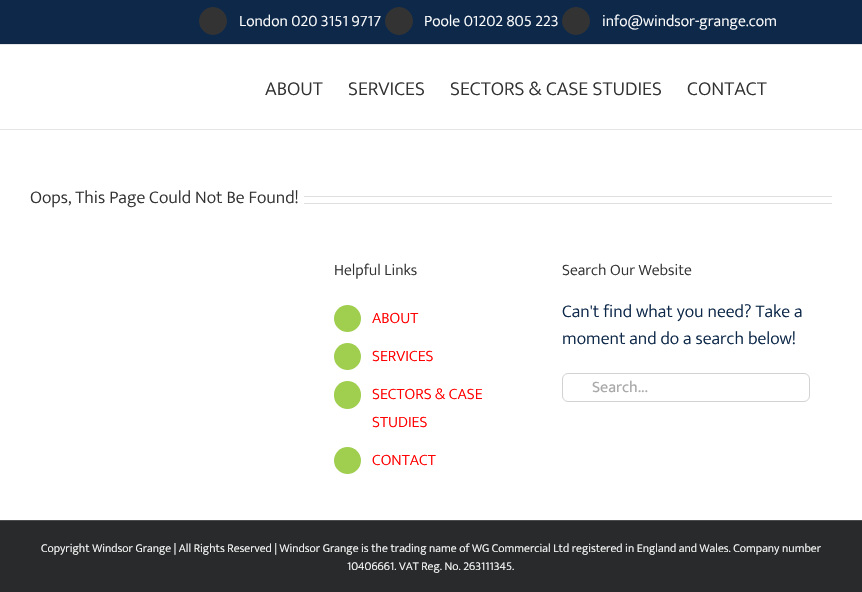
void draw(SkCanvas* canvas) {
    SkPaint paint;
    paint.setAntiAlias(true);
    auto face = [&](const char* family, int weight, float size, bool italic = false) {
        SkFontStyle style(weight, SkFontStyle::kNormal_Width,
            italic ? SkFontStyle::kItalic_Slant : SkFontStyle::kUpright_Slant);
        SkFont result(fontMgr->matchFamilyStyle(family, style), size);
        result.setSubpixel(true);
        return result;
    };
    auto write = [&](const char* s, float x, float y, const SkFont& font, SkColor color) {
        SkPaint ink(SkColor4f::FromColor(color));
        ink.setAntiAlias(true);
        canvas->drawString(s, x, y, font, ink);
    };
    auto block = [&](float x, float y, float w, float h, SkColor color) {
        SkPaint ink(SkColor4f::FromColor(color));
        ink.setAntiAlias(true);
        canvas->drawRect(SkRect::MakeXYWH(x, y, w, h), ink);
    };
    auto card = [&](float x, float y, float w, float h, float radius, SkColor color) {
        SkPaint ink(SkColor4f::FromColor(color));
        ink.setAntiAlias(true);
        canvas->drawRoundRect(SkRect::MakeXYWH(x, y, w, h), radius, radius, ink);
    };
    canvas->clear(SK_ColorWHITE);
    block(0, 0, 862, 44, SkColorSetRGB(13, 40, 73));
    block(0, 44, 862, 1, SkColorSetRGB(229, 229, 229));
    paint.setColor(SkColorSetRGB(51, 51, 51));
    canvas->drawCircle(213, 21, 13.5f, paint);
    paint.setStyle(SkPaint::kStroke_Style);
    paint.setStrokeWidth(1);
    canvas->drawCircle(213, 21, 13.5f, paint);
    auto kFont1 = face("Mukta Vaani", 300, 16);
    write("London 020 3151 9717", 239, 26, kFont1, SK_ColorWHITE);
    paint.setStyle(SkPaint::kFill_Style);
    canvas->drawCircle(399, 21, 13.5f, paint);
    paint.setStyle(SkPaint::kStroke_Style);
    canvas->drawCircle(399, 21, 13.5f, paint);
    write("Poole 01202 805 223", 424, 26, kFont1, SK_ColorWHITE);
    paint.setStyle(SkPaint::kFill_Style);
    canvas->drawCircle(576, 21, 13.5f, paint);
    paint.setStyle(SkPaint::kStroke_Style);
    canvas->drawCircle(576, 21, 13.5f, paint);
    write("info@windsor-grange.com", 602, 26, kFont1, SK_ColorWHITE);
    block(0, 129, 862, 1, SkColorSetRGB(229, 229, 229));
    auto kFont2 = face("Mukta Vaani", 300, 20);
    write("ABOUT", 265, 95, kFont2, SkColorSetRGB(51, 51, 51));
    write("SERVICES", 348, 95, kFont2, SkColorSetRGB(51, 51, 51));
    write("SECTORS & CASE STUDIES", 450, 95, kFont2, SkColorSetRGB(51, 51, 51));
    write("CONTACT", 687, 95, kFont2, SkColorSetRGB(51, 51, 51));
    auto kFont3 = face("Mukta Vaani", 300, 18);
    write("Oops, This Page Could Not Be Found!", 30, 203, kFont3, SkColorSetRGB(51, 51, 51));
    block(304, 196, 528, 1, SkColorSetRGB(224, 222, 222));
    block(304, 203, 528, 1, SkColorSetRGB(224, 222, 222));
    write("Helpful Links", 334, 275, kFont1, SkColorSetRGB(51, 51, 51));
    paint.setStyle(SkPaint::kFill_Style);
    paint.setColor(SkColorSetRGB(160, 206, 78));
    canvas->drawCircle(347.5f, 318.5f, 13.5f, paint);
    write("ABOUT", 372, 323, kFont1, SkColorSetRGB(255, 0, 0));
    canvas->drawCircle(347.5f, 356.5f, 13.5f, paint);
    write("SERVICES", 372, 361, kFont1, SkColorSetRGB(255, 0, 0));
    card(334, 381, 27, 28, 13.5f, SkColorSetRGB(160, 206, 78));
    write("SECTORS & CASE", 372, 399, kFont1, SkColorSetRGB(255, 0, 0));
    write("STUDIES", 372, 427, kFont1, SkColorSetRGB(255, 0, 0));
    canvas->drawCircle(347.5f, 460.5f, 13.5f, paint);
    write("CONTACT", 372, 465, kFont1, SkColorSetRGB(255, 0, 0));
    write("Search Our Website", 562, 275, kFont1, SkColorSetRGB(51, 51, 51));
    write("Can't find what you need? Take a", 562, 317, kFont3, SkColorSetRGB(13, 40, 73));
    write("moment and do a search below!", 562, 344, kFont3, SkColorSetRGB(13, 40, 73));
    paint.setStyle(SkPaint::kStroke_Style);
    paint.setColor(SkColorSetRGB(210, 210, 210));
    canvas->drawRoundRect(SkRect::MakeXYWH(562.5f, 373.5f, 247, 28), 5.5f, 5.5f, paint);
    auto kFont4 = face("Mukta Vaani", 400, 16);
    write("Search...", 592, 392, kFont4, SkColorSetRGB(170, 169, 169));
    block(0, 521, 862, 71, SkColorSetRGB(40, 42, 43));
    block(0, 520, 862, 1, SkColorSetRGB(75, 76, 77));
    auto kFont5 = face("Mukta Vaani", 300, 12);
    write("Copyright Windsor Grange | All Rights Reserved | Windsor Grange is the trading name of WG Commercial Ltd registered in England and Wales. Company number", 41, 552, kFont5, SK_ColorWHITE);
    write("10406661. VAT Reg. No. 263111345.", 347, 570, kFont5, SK_ColorWHITE);
}
